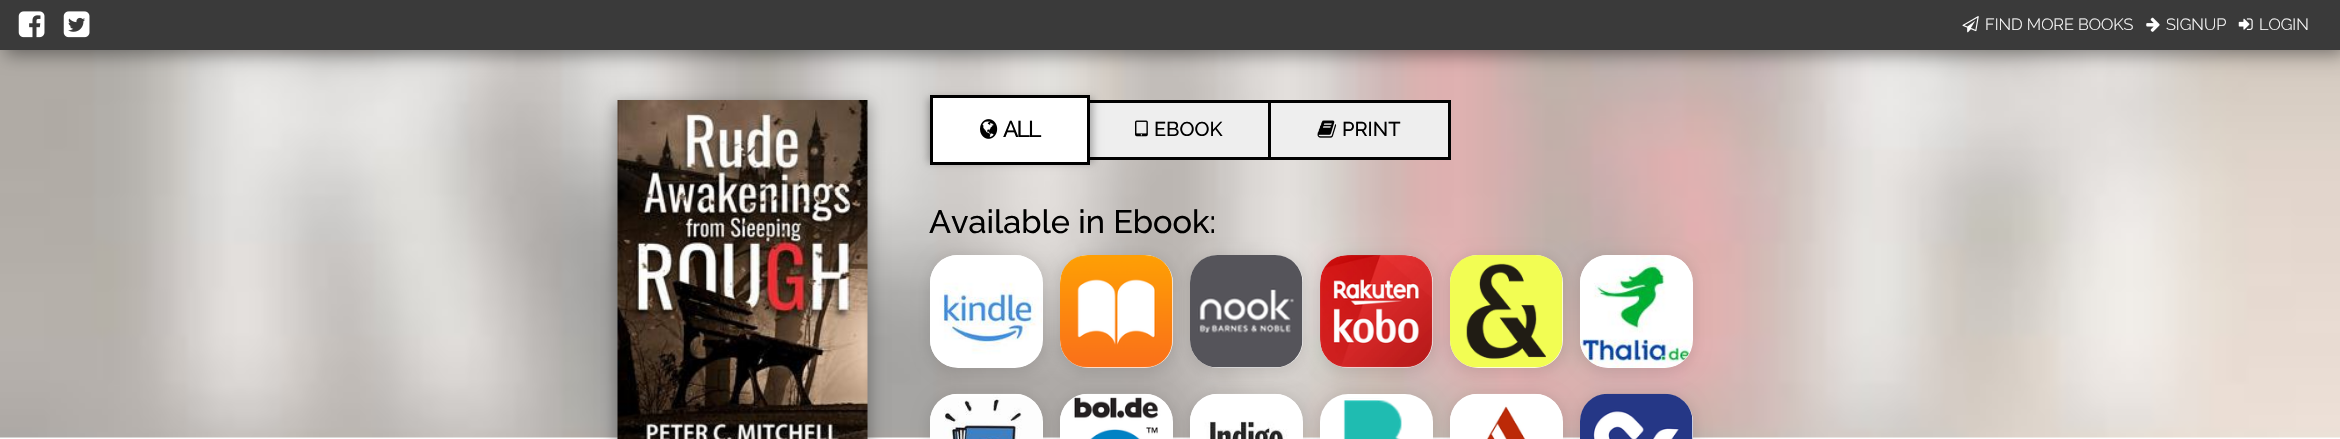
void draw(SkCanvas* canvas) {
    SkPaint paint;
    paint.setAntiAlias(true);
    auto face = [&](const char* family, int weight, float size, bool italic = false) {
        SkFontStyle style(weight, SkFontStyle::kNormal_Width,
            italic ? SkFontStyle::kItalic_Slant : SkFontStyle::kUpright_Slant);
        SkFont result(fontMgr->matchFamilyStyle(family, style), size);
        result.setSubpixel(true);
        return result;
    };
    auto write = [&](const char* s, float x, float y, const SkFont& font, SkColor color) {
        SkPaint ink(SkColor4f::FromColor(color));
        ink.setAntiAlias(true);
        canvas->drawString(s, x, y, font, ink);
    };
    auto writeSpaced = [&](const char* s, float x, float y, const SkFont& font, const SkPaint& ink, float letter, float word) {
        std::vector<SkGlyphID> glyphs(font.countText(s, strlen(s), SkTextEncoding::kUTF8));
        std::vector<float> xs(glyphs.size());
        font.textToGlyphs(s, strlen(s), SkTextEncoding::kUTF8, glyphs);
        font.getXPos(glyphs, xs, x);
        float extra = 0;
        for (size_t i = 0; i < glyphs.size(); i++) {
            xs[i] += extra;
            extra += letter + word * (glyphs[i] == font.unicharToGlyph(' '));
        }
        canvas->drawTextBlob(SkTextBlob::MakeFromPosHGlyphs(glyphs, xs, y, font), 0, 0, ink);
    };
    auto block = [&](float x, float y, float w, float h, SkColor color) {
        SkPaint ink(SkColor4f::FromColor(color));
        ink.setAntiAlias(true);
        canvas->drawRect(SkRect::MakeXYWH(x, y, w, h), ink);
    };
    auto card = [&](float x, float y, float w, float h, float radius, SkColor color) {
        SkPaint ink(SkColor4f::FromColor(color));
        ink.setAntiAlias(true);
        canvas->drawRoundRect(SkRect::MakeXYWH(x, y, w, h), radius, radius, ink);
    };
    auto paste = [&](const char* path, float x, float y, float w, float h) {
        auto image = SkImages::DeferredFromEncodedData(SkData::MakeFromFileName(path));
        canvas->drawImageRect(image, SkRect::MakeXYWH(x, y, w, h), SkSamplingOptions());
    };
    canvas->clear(SK_ColorWHITE);
    paste("pic1.png", 0, 50, 2340, 388);
    paint.setColor(SkColorSetARGB(102, 0, 0, 0));
    paint.setMaskFilter(SkMaskFilter::MakeBlur(kNormal_SkBlurStyle, 9));
    canvas->drawRect(SkRect::MakeXYWH(5, 5, 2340, 50), paint);
    paint.setMaskFilter(nullptr);
    block(0, 0, 2340, 50, SkColorSetRGB(58, 58, 58));
    paste("pic2.png", 18, 11, 27, 27);
    paste("pic3.png", 63, 11, 27, 27);
    paste("pic4.png", 1962, 16, 17, 17);
    auto kFont1 = face("Raleway", 300, 16.25f);
    write("FIND MORE BOOKS", 1985, 30, kFont1, SK_ColorWHITE);
    paste("pic5.png", 2146, 17, 14, 15);
    write("SIGNUP", 2166, 30, kFont1, SK_ColorWHITE);
    paste("pic6.png", 2238, 18, 15, 12);
    write("LOGIN", 2259, 30, kFont1, SK_ColorWHITE);
    paint.setColor(SkColorSetARGB(77, 0, 0, 0));
    paint.setMaskFilter(SkMaskFilter::MakeBlur(kNormal_SkBlurStyle, 7.5f));
    canvas->drawRect(SkRect::MakeXYWH(615, 103, 255, 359), paint);
    paint.setMaskFilter(nullptr);
    paste("pic7.png", 617, 100, 251, 339);
    block(1090, 103, 178, 54, SkColorSetRGB(238, 238, 238));
    paint.setStyle(SkPaint::kStroke_Style);
    paint.setStrokeWidth(3);
    paint.setColor(SK_ColorBLACK);
    canvas->drawRect(SkRect::MakeXYWH(1086.5f, 101.5f, 185, 57), paint);
    paint.setStyle(SkPaint::kFill_Style);
    paint.setColor(SkColorSetARGB(77, 0, 0, 0));
    paint.setMaskFilter(SkMaskFilter::MakeBlur(kNormal_SkBlurStyle, 4));
    canvas->drawRect(SkRect::MakeXYWH(928, 98, 165, 65), paint);
    paint.setMaskFilter(nullptr);
    paint.setColor(SK_ColorWHITE);
    canvas->drawRect(SkRect::MakeXYWH(931.5f, 96.5f, 157, 67), paint);
    paint.setStyle(SkPaint::kStroke_Style);
    paint.setColor(SK_ColorBLACK);
    canvas->drawRect(SkRect::MakeXYWH(931.5f, 96.5f, 157, 67), paint);
    paste("pic8.png", 980, 119, 18, 20);
    auto kFont2 = face("Raleway", 500, 23);
    paint.setStyle(SkPaint::kFill_Style);
    writeSpaced("ALL", 1003, 137, kFont2, paint, -2, 0);
    paste("pic9.png", 1135, 120, 13, 17);
    auto kFont3 = face("Raleway", 500, 20);
    write("EBOOK", 1154, 136, kFont3, SK_ColorBLACK);
    paint.setColor(SkColorSetRGB(238, 238, 238));
    canvas->drawRect(SkRect::MakeXYWH(1269.5f, 101.5f, 180, 57), paint);
    paint.setStyle(SkPaint::kStroke_Style);
    paint.setColor(SK_ColorBLACK);
    canvas->drawRect(SkRect::MakeXYWH(1269.5f, 101.5f, 180, 57), paint);
    paste("pic10.png", 1317, 120, 20, 18);
    write("PRINT", 1342, 136, kFont3, SK_ColorBLACK);
    paint.setStyle(SkPaint::kFill_Style);
    paint.setColor(SkColorSetARGB(26, 0, 0, 0));
    paint.setMaskFilter(SkMaskFilter::MakeBlur(kNormal_SkBlurStyle, 7.5f));
    canvas->drawRoundRect(SkRect::MakeXYWH(928, 255, 117, 118), 30, 30, paint);
    paint.setMaskFilter(nullptr);
    card(930, 255, 113, 113, 28, SK_ColorWHITE);
    paste("pic11.png", 930, 255, 112, 112);
    paint.setMaskFilter(SkMaskFilter::MakeBlur(kNormal_SkBlurStyle, 7.5f));
    canvas->drawRoundRect(SkRect::MakeXYWH(1058, 255, 117, 118), 30, 30, paint);
    paint.setMaskFilter(nullptr);
    card(1060, 255, 113, 113, 28, SK_ColorWHITE);
    paste("pic12.png", 1060, 255, 113, 113);
    paint.setMaskFilter(SkMaskFilter::MakeBlur(kNormal_SkBlurStyle, 7.5f));
    canvas->drawRoundRect(SkRect::MakeXYWH(1188, 255, 117, 118), 30, 30, paint);
    paint.setMaskFilter(nullptr);
    auto kFont4 = face("Raleway", 500, 32.5f);
    write("Available in Ebook:", 929, 233, kFont4, SK_ColorBLACK);
    card(1190, 255, 113, 113, 28, SK_ColorWHITE);
    paste("pic13.png", 1190, 255, 113, 113);
    paint.setMaskFilter(SkMaskFilter::MakeBlur(kNormal_SkBlurStyle, 7.5f));
    canvas->drawRoundRect(SkRect::MakeXYWH(1318, 255, 117, 118), 30, 30, paint);
    paint.setMaskFilter(nullptr);
    card(1320, 255, 113, 113, 28, SK_ColorWHITE);
    paste("pic14.png", 1320, 255, 113, 113);
    paint.setMaskFilter(SkMaskFilter::MakeBlur(kNormal_SkBlurStyle, 7.5f));
    canvas->drawRoundRect(SkRect::MakeXYWH(1448, 255, 117, 118), 30, 30, paint);
    paint.setMaskFilter(nullptr);
    card(1450, 255, 113, 113, 28, SK_ColorWHITE);
    paste("pic15.png", 1450, 255, 113, 113);
    paint.setMaskFilter(SkMaskFilter::MakeBlur(kNormal_SkBlurStyle, 7.5f));
    canvas->drawRoundRect(SkRect::MakeXYWH(1578, 255, 117, 118), 30, 30, paint);
    paint.setMaskFilter(nullptr);
    card(1580, 255, 113, 113, 28, SK_ColorWHITE);
    paste("pic16.png", 1580, 255, 112, 113);
    paint.setMaskFilter(SkMaskFilter::MakeBlur(kNormal_SkBlurStyle, 7.5f));
    canvas->drawRoundRect(SkRect::MakeXYWH(928, 394, 117, 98), 30, 30, paint);
    paint.setMaskFilter(nullptr);
    card(930, 394, 113, 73, 28, SK_ColorWHITE);
    paste("pic17.png", 930, 393, 112, 46);
    paint.setMaskFilter(SkMaskFilter::MakeBlur(kNormal_SkBlurStyle, 7.5f));
    canvas->drawRoundRect(SkRect::MakeXYWH(1058, 394, 117, 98), 30, 30, paint);
    paint.setMaskFilter(nullptr);
    card(1060, 394, 113, 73, 28, SK_ColorWHITE);
    paste("pic18.png", 1060, 393, 112, 46);
    paint.setMaskFilter(SkMaskFilter::MakeBlur(kNormal_SkBlurStyle, 7.5f));
    canvas->drawRoundRect(SkRect::MakeXYWH(1188, 394, 117, 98), 30, 30, paint);
    paint.setMaskFilter(nullptr);
    card(1190, 394, 113, 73, 28, SK_ColorWHITE);
    paste("pic19.png", 1190, 393, 112, 46);
    paint.setMaskFilter(SkMaskFilter::MakeBlur(kNormal_SkBlurStyle, 7.5f));
    canvas->drawRoundRect(SkRect::MakeXYWH(1318, 394, 117, 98), 30, 30, paint);
    paint.setMaskFilter(nullptr);
    card(1320, 394, 113, 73, 28, SK_ColorWHITE);
    paint.setMaskFilter(SkMaskFilter::MakeBlur(kNormal_SkBlurStyle, 7.5f));
    canvas->drawRoundRect(SkRect::MakeXYWH(1448, 394, 117, 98), 30, 30, paint);
    paint.setMaskFilter(nullptr);
    card(1450, 394, 113, 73, 28, SK_ColorWHITE);
    paste("pic20.png", 1450, 393, 112, 46);
    paint.setMaskFilter(SkMaskFilter::MakeBlur(kNormal_SkBlurStyle, 7.5f));
    canvas->drawRoundRect(SkRect::MakeXYWH(1578, 394, 117, 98), 30, 30, paint);
    paint.setMaskFilter(nullptr);
    card(1580, 394, 113, 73, 28, SK_ColorWHITE);
    paste("pic21.png", 1580, 393, 113, 46);
    paste("pic22.png", 1343, 398, 59, 41);
}
